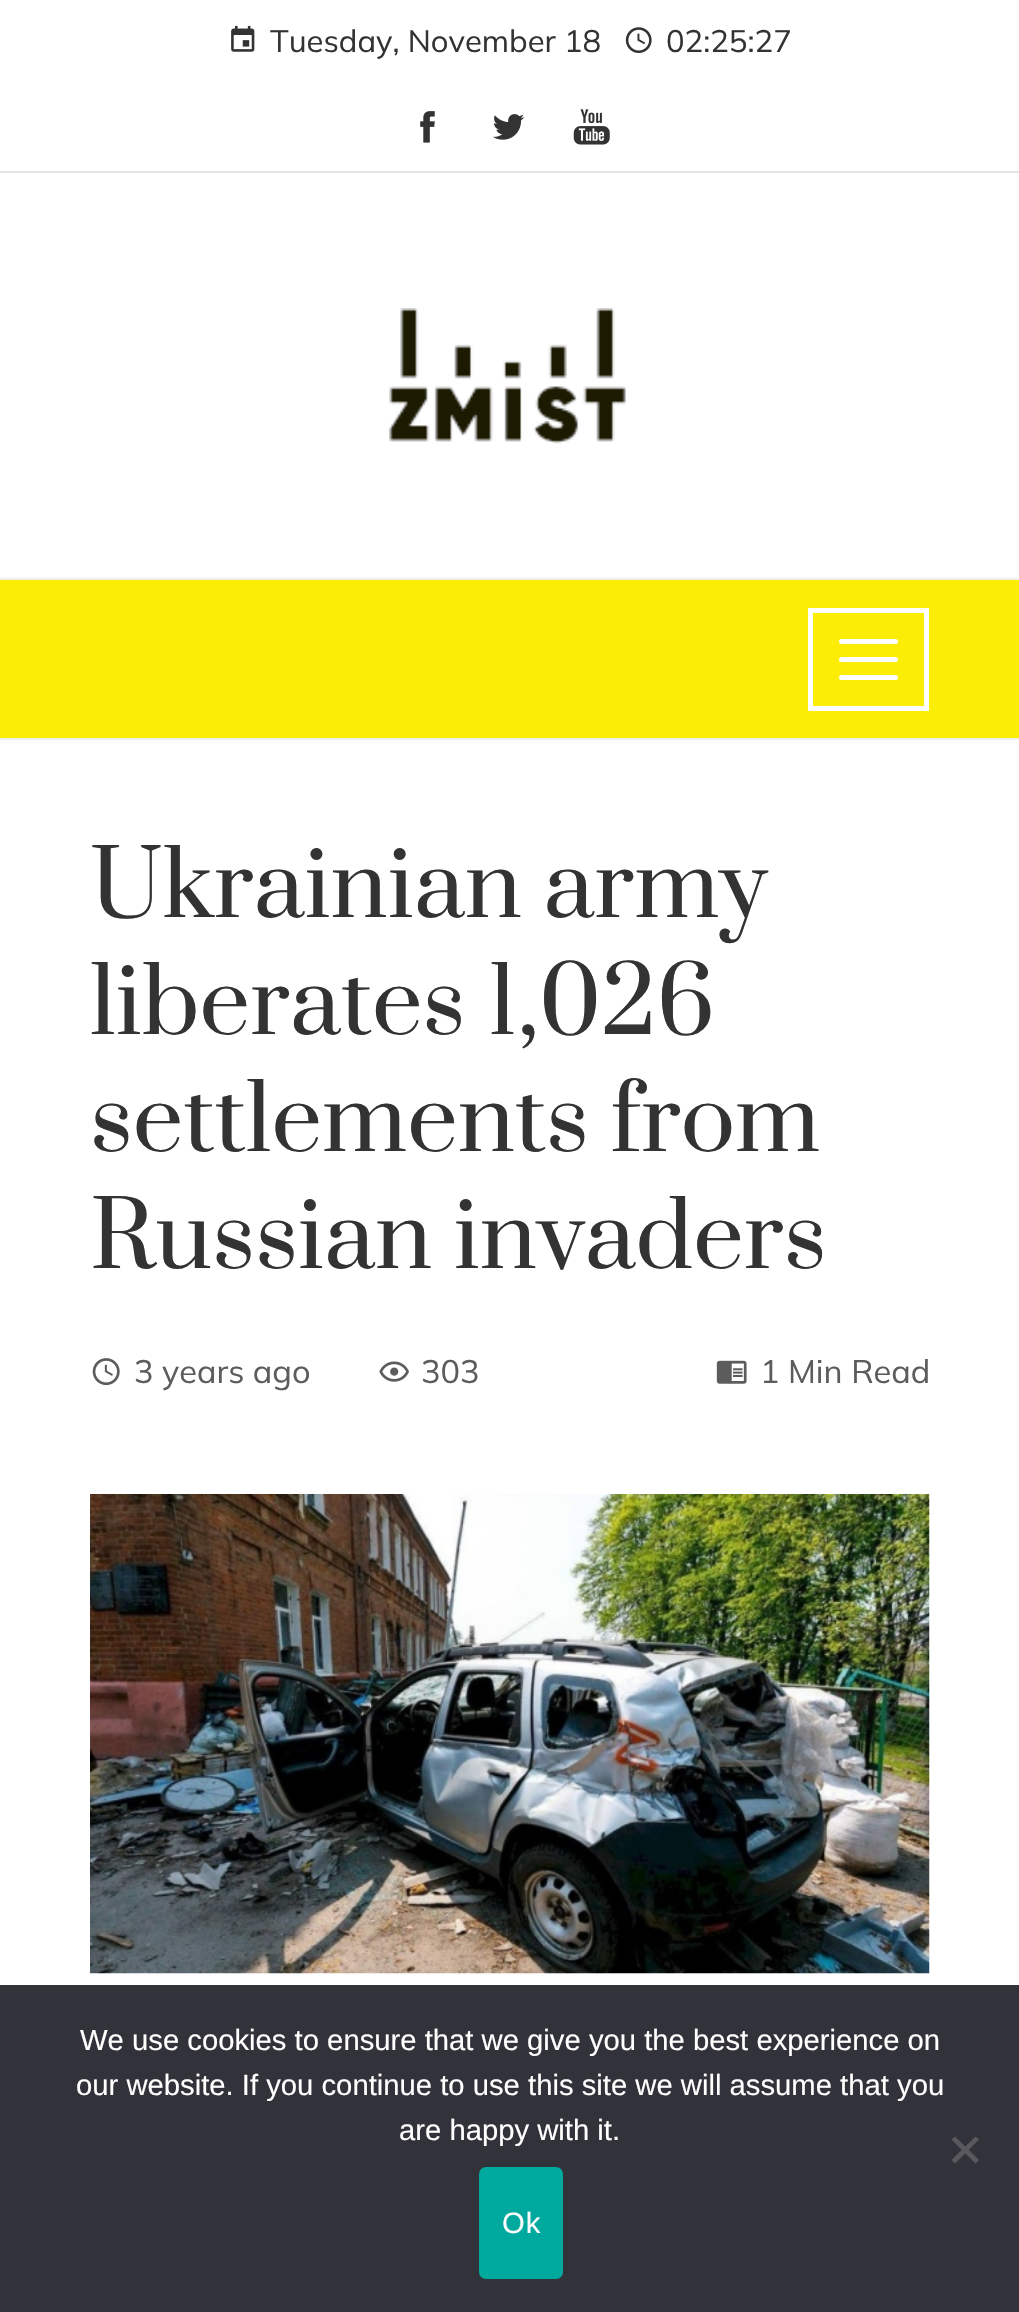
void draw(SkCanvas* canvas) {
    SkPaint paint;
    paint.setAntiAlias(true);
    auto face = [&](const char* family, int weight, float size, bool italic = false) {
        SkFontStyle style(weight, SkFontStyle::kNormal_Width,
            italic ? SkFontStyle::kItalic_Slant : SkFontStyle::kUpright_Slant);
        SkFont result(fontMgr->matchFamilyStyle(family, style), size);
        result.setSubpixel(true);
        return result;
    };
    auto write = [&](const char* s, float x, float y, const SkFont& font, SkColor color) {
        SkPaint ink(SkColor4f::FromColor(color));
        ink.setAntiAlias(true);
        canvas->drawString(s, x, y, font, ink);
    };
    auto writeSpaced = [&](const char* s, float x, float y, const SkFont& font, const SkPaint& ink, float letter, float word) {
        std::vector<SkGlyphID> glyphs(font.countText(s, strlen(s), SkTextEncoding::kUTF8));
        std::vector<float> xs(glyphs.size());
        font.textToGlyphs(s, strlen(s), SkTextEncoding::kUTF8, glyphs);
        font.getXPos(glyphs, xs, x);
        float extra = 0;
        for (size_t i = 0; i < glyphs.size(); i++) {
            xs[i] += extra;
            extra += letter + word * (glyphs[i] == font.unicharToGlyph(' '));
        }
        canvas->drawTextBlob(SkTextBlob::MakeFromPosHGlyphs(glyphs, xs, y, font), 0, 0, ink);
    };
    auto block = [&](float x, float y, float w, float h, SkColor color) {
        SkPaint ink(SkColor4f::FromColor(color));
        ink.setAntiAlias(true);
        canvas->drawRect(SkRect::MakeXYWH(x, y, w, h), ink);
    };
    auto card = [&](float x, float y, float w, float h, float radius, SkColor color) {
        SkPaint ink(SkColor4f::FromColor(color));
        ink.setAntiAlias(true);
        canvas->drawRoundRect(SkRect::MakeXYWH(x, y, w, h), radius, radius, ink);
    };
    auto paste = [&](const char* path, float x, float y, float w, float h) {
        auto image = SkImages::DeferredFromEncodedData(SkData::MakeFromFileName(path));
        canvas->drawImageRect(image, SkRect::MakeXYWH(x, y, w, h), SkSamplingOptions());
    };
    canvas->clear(SK_ColorWHITE);
    block(0, 171, 1019, 2, SkColorSetRGB(229, 229, 229));
    paste("pic1.png", 231, 25, 24, 27);
    auto kFont1 = face("Mulish", 400, 31);
    write("Tuesday, November 18", 270, 52, kFont1, SkColorSetRGB(51, 51, 51));
    paste("pic2.png", 625, 27, 27, 26);
    write("02:25:27", 666, 52, kFont1, SkColorSetRGB(51, 51, 51));
    paste("pic3.png", 420, 111, 15, 32);
    paste("pic4.png", 493, 114, 32, 26);
    paste("pic5.png", 573, 109, 37, 36);
    paste("pic6.png", 389, 308, 237, 136);
    block(0, 580, 1019, 158, SkColorSetRGB(251, 237, 4));
    block(0, 578, 1019, 2, SkColorSetRGB(238, 238, 238));
    block(0, 738, 1019, 2, SkColorSetRGB(238, 238, 238));
    paint.setStyle(SkPaint::kStroke_Style);
    paint.setStrokeWidth(5);
    paint.setColor(SK_ColorWHITE);
    canvas->drawRect(SkRect::MakeXYWH(810.5f, 610.5f, 116, 98), paint);
    card(839, 639, 59, 5, 2.5f, SK_ColorWHITE);
    card(839, 657, 59, 5, 2.5f, SK_ColorWHITE);
    card(839, 675, 59, 5, 2.5f, SK_ColorWHITE);
    auto kFont2 = face("Prata", 400, 90);
    write("Ukrainian army", 90, 917, kFont2, SkColorSetRGB(51, 51, 51));
    write("liberates 1,026", 90, 1034, kFont2, SkColorSetRGB(51, 51, 51));
    write("settlements from", 90, 1151, kFont2, SkColorSetRGB(51, 51, 51));
    write("Russian invaders", 90, 1268, kFont2, SkColorSetRGB(51, 51, 51));
    paste("pic7.png", 92, 1358, 28, 28);
    auto kFont3 = face("Mulish", 400, 32.5f);
    write("3 years ago", 134, 1383, kFont3, SkColorSetRGB(92, 92, 92));
    paste("pic8.png", 379, 1361, 30, 21);
    write("303", 421, 1383, kFont3, SkColorSetRGB(92, 92, 92));
    paste("pic9.png", 716, 1360, 31, 24);
    write("1 Min Read", 760, 1383, kFont3, SkColorSetRGB(92, 92, 92));
    paste("pic10.png", 90, 1494, 840, 480);
    block(0, 1985, 1019, 327, SkColorSetRGB(50, 50, 58));
    auto kFont4 = face("Liberation Sans", 400, 29.25f);
    write("We use cookies to ensure that we give you the best experience on", 80, 2050, kFont4, SK_ColorWHITE);
    write("our website. If you continue to use this site we will assume that you", 76, 2095, kFont4, SK_ColorWHITE);
    write("are happy with it.", 399, 2140, kFont4, SK_ColorWHITE);
    paint.setStyle(SkPaint::kFill_Style);
    paint.setColor(SkColorSetRGB(89, 89, 93));
    canvas->drawPath(SkPathBuilder().moveTo(975.5f, 2136.5f).lineTo(979, 2139.5f).lineTo(955, 2163.5f).lineTo(951.5f, 2160).close().detach(), paint);
    canvas->drawPath(SkPathBuilder().moveTo(951.5f, 2139.5f).lineTo(955, 2136.5f).lineTo(979, 2160).lineTo(975.5f, 2163.5f).close().detach(), paint);
    card(479, 2167, 84, 112, 7, SkColorSetRGB(0, 169, 157));
    paint.setColor(SK_ColorWHITE);
    writeSpaced("Ok", 502, 2233, kFont4, paint, 1, 0);
}
